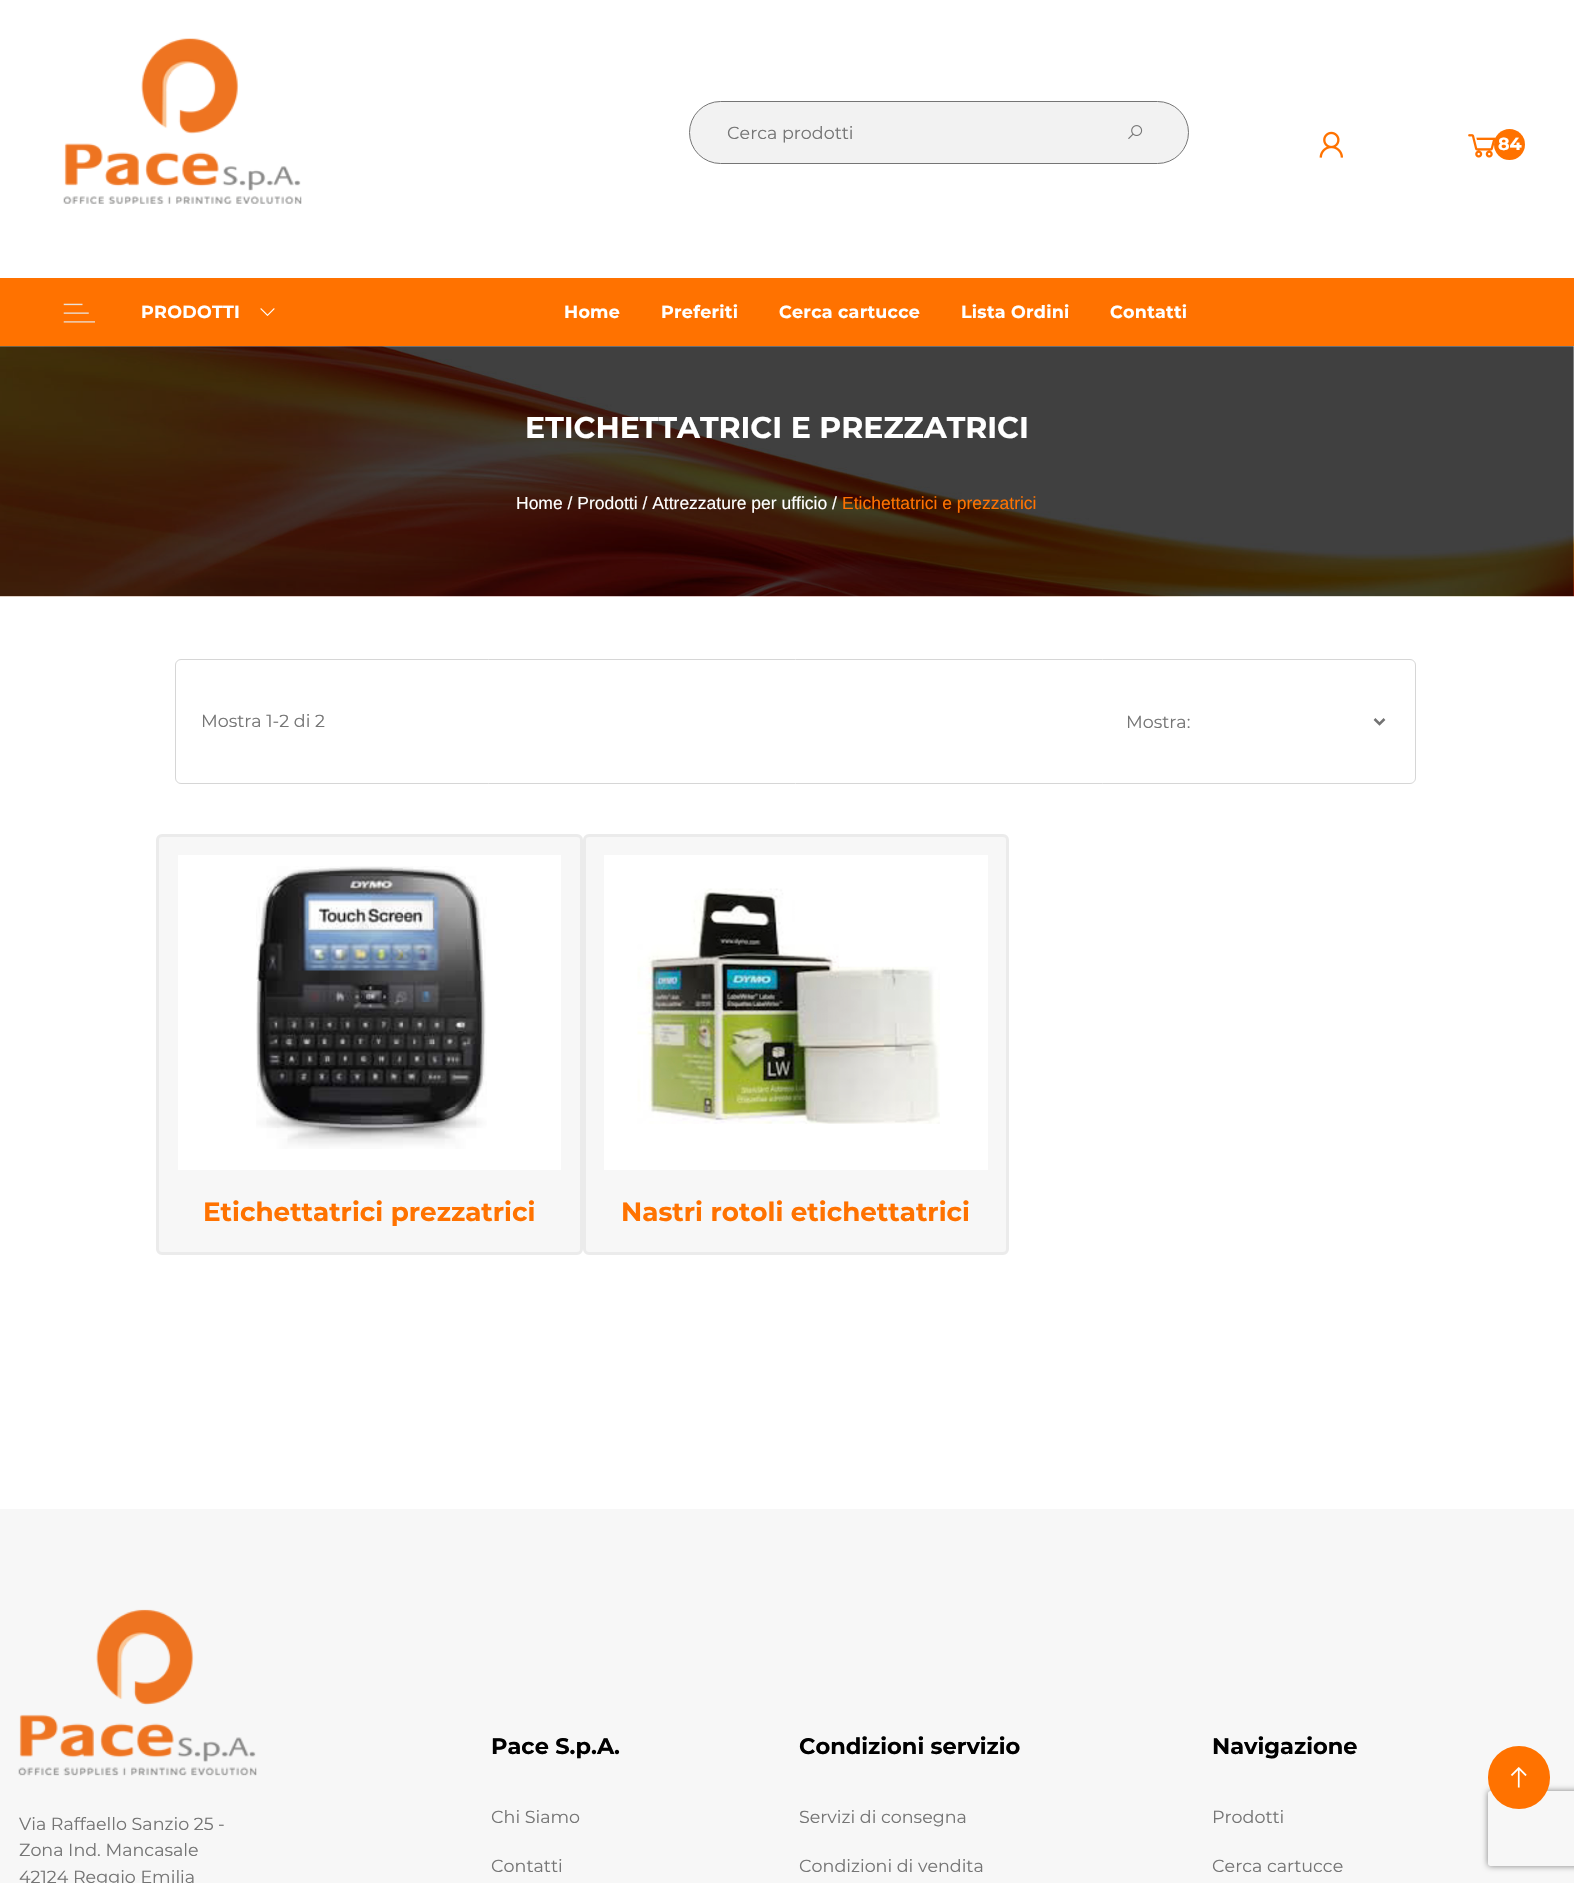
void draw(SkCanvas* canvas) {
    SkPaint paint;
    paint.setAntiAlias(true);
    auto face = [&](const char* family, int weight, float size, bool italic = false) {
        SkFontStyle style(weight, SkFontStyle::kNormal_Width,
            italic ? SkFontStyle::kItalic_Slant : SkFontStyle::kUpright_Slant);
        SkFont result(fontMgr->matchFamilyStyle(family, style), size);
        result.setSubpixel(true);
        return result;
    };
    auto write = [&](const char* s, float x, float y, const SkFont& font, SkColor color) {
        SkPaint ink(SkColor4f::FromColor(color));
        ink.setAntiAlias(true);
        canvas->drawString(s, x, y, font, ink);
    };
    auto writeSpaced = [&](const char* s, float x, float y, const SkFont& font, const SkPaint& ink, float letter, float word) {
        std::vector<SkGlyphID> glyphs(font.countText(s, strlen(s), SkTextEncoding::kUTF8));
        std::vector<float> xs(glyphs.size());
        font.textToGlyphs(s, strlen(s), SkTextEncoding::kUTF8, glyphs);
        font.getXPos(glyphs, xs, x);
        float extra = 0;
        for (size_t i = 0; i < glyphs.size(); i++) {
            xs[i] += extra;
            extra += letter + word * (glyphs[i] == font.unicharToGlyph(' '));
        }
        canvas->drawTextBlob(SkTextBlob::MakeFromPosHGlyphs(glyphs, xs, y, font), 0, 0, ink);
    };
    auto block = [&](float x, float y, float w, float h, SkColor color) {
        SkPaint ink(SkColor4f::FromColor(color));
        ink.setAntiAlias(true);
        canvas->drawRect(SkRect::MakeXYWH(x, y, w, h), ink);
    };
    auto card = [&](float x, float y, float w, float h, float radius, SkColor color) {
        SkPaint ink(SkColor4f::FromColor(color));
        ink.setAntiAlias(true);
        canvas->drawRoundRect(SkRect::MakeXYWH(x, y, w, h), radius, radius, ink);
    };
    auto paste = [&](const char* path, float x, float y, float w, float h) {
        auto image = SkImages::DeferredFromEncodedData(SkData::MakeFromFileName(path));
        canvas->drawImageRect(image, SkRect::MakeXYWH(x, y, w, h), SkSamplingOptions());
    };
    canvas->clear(SK_ColorWHITE);
    paste("pic1.png", 63, 38, 239, 166);
    paint.setColor(SkColorSetRGB(242, 242, 242));
    canvas->drawRoundRect(SkRect::MakeXYWH(689.5f, 101.5f, 499, 62), 31, 31, paint);
    paint.setStyle(SkPaint::kStroke_Style);
    paint.setStrokeWidth(1);
    paint.setColor(SkColorSetRGB(117, 117, 117));
    canvas->drawRoundRect(SkRect::MakeXYWH(689.5f, 101.5f, 499, 62), 31, 31, paint);
    auto kFont1 = face("Montserrat", 400, 17.5f);
    write("Cerca prodotti", 727, 139, kFont1, SkColorSetRGB(117, 117, 117));
    paste("pic2.png", 1128, 125, 15, 14);
    paste("pic3.png", 1319, 131, 24, 27);
    paste("pic4.png", 1468, 134, 28, 24);
    paint.setStyle(SkPaint::kFill_Style);
    paint.setColor(SkColorSetRGB(255, 114, 0));
    canvas->drawCircle(1509.5f, 144.5f, 15.5f, paint);
    auto kFont2 = face("Montserrat", 700, 17.5f);
    write("84", 1498, 150, kFont2, SK_ColorWHITE);
    block(0, 278, 1574, 68, SkColorSetRGB(255, 114, 0));
    paste("pic5.png", 63, 303, 32, 20);
    paint.setColor(SK_ColorWHITE);
    writeSpaced("PRODOTTI", 141, 318, kFont2, paint, 0.25f, 0);
    paste("pic6.png", 260, 308, 15, 8);
    writeSpaced("Home", 564, 318, kFont2, paint, 0.25f, 0);
    writeSpaced("Preferiti", 661, 318, kFont2, paint, 0.25f, 0);
    writeSpaced("Cerca cartucce", 779, 318, kFont2, paint, 0.25f, 0);
    writeSpaced("Lista Ordini", 961, 318, kFont2, paint, 0.25f, 0);
    writeSpaced("Contatti", 1110, 318, kFont2, paint, 0.25f, 0);
    paste("pic7.png", 0, 346, 1574, 251);
    auto kFont3 = face("Montserrat", 700, 30);
    write("ETICHETTATRICI E PREZZATRICI", 525, 438, kFont3, SK_ColorWHITE);
    auto kFont4 = face("Liberation Sans", 400, 17.5f);
    write("Home / Prodotti / Attrezzature per ufficio /", 516, 509, kFont4, SK_ColorWHITE);
    write("Etichettatrici e prezzatrici", 842, 509, kFont4, SkColorSetRGB(255, 114, 0));
    paint.setStyle(SkPaint::kStroke_Style);
    paint.setColor(SkColorSetRGB(214, 214, 214));
    canvas->drawRoundRect(SkRect::MakeXYWH(175.5f, 659.5f, 1240, 124), 5.5f, 5.5f, paint);
    write("Mostra 1-2 di 2", 201, 727, kFont1, SkColorSetRGB(117, 117, 117));
    paint.setStrokeWidth(2.5f);
    paint.setColor(SkColorSetRGB(115, 115, 115));
    canvas->drawPath(SkPathBuilder().moveTo(1374.5f, 719).lineTo(1379.5f, 724).lineTo(1384.5f, 719).detach(), paint);
    write("Mostra:", 1126, 728, kFont1, SkColorSetRGB(117, 117, 117));
    paint.setStyle(SkPaint::kFill_Style);
    paint.setColor(SkColorSetRGB(247, 247, 247));
    canvas->drawRoundRect(SkRect::MakeXYWH(157.5f, 835.5f, 424, 418), 4.5f, 4.5f, paint);
    paint.setStyle(SkPaint::kStroke_Style);
    paint.setStrokeWidth(3);
    paint.setColor(SkColorSetRGB(235, 235, 235));
    canvas->drawRoundRect(SkRect::MakeXYWH(157.5f, 835.5f, 424, 418), 4.5f, 4.5f, paint);
    block(178, 855, 383, 315, SK_ColorWHITE);
    paste("pic8.png", 256, 866, 231, 283);
    auto kFont5 = face("Montserrat", 700, 26.25f);
    write("Etichettatrici prezzatrici", 203, 1221, kFont5, SkColorSetRGB(255, 114, 0));
    paint.setStyle(SkPaint::kFill_Style);
    paint.setColor(SkColorSetRGB(247, 247, 247));
    canvas->drawRoundRect(SkRect::MakeXYWH(584.5f, 835.5f, 423, 418), 4.5f, 4.5f, paint);
    paint.setStyle(SkPaint::kStroke_Style);
    paint.setColor(SkColorSetRGB(235, 235, 235));
    canvas->drawRoundRect(SkRect::MakeXYWH(584.5f, 835.5f, 423, 418), 4.5f, 4.5f, paint);
    block(604, 855, 384, 315, SK_ColorWHITE);
    paste("pic9.png", 637, 888, 303, 236);
    write("Nastri rotoli etichettatrici", 621, 1221, kFont5, SkColorSetRGB(255, 114, 0));
    block(0, 1509, 1574, 374, SkColorSetRGB(247, 247, 247));
    paste("pic10.png", 18, 1609, 239, 167);
    write("Via Raffaello Sanzio 25 -", 19, 1830, kFont1, SkColorSetRGB(117, 117, 117));
    write("Zona Ind. Mancasale", 19, 1856, kFont1, SkColorSetRGB(117, 117, 117));
    write("42124 Reggio Emilia", 19, 1883, kFont1, SkColorSetRGB(117, 117, 117));
    auto kFont6 = face("Montserrat", 700, 22.5f);
    write("Pace S.p.A.", 491, 1754, kFont6, SK_ColorBLACK);
    write("Chi Siamo", 491, 1823, kFont1, SkColorSetRGB(117, 117, 117));
    write("Contatti", 491, 1872, kFont1, SkColorSetRGB(117, 117, 117));
    write("Condizioni servizio", 799, 1754, kFont6, SK_ColorBLACK);
    write("Servizi di consegna", 799, 1823, kFont1, SkColorSetRGB(117, 117, 117));
    write("Condizioni di vendita", 799, 1872, kFont1, SkColorSetRGB(117, 117, 117));
    write("Navigazione", 1212, 1754, kFont6, SK_ColorBLACK);
    write("Prodotti", 1212, 1823, kFont1, SkColorSetRGB(117, 117, 117));
    write("Cerca cartucce", 1212, 1872, kFont1, SkColorSetRGB(117, 117, 117));
    canvas->save();
    canvas->clipPath(SkPathBuilder(SkPathFillType::kEvenOdd).moveTo(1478, 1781).lineTo(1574, 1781).lineTo(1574, 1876).lineTo(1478, 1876).close().moveTo(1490.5f, 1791).lineTo(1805.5f, 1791).cubicTo(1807, 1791, 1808, 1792, 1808, 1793.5f).lineTo(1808, 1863.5f).cubicTo(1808, 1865, 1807, 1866, 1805.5f, 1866).lineTo(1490.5f, 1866).cubicTo(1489, 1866, 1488, 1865, 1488, 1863.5f).lineTo(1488, 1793.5f).cubicTo(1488, 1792, 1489, 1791, 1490.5f, 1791).close().detach(), true);
    paint.setStyle(SkPaint::kFill_Style);
    paint.setColor(SkColorSetRGB(128, 128, 128));
    paint.setMaskFilter(SkMaskFilter::MakeBlur(kNormal_SkBlurStyle, 3));
    canvas->drawRoundRect(SkRect::MakeXYWH(1488, 1791, 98, 75), 2.5f, 2.5f, paint);
    paint.setMaskFilter(nullptr);
    canvas->restore();
    card(1488, 1746, 62, 63, 31, SkColorSetRGB(255, 114, 0));
    paste("pic11.png", 1510, 1767, 17, 21);
}
